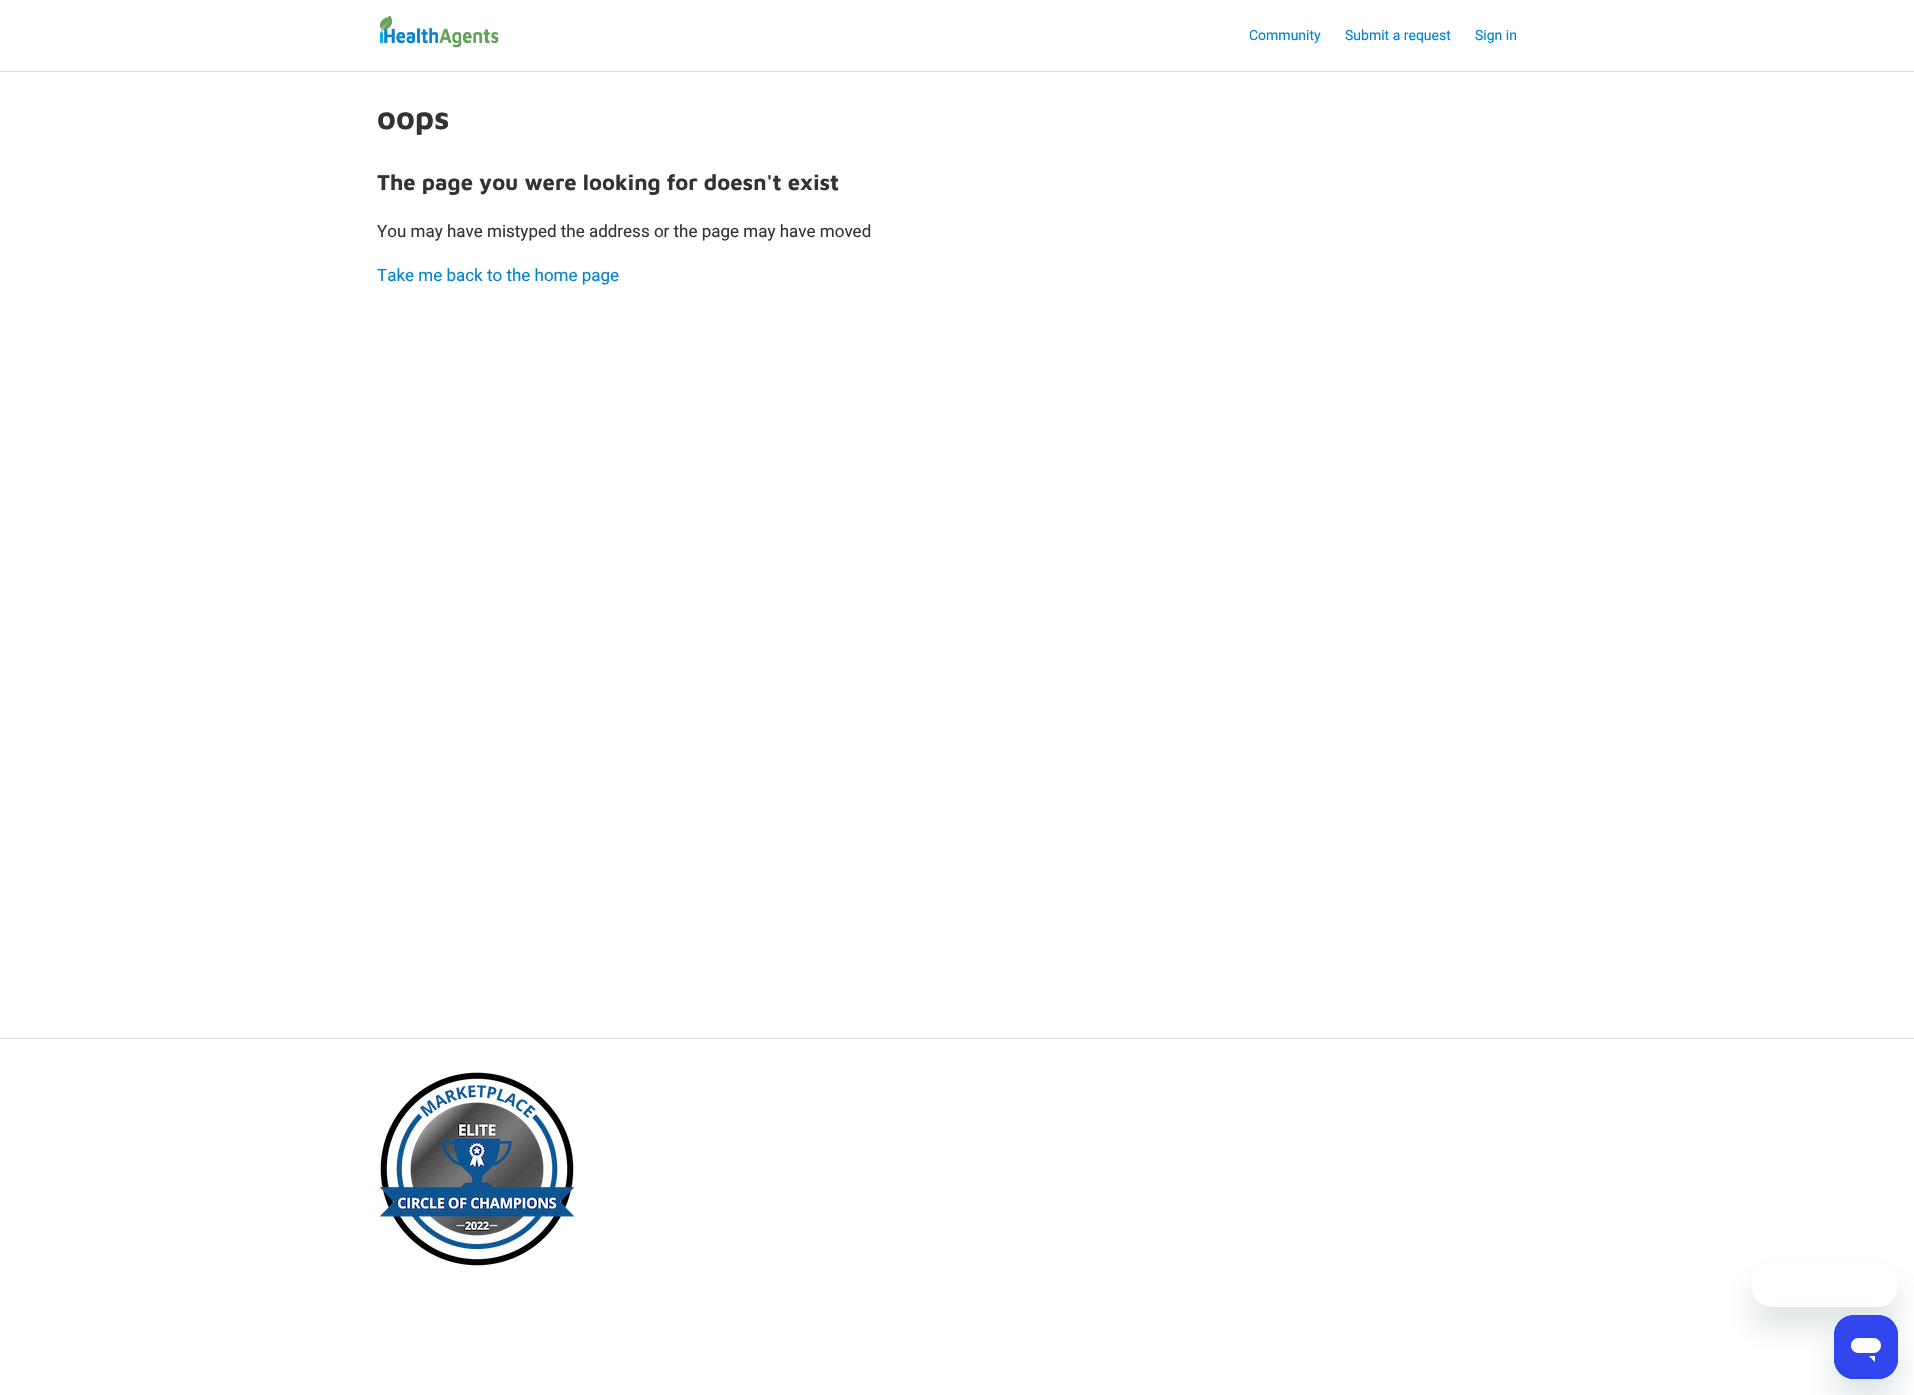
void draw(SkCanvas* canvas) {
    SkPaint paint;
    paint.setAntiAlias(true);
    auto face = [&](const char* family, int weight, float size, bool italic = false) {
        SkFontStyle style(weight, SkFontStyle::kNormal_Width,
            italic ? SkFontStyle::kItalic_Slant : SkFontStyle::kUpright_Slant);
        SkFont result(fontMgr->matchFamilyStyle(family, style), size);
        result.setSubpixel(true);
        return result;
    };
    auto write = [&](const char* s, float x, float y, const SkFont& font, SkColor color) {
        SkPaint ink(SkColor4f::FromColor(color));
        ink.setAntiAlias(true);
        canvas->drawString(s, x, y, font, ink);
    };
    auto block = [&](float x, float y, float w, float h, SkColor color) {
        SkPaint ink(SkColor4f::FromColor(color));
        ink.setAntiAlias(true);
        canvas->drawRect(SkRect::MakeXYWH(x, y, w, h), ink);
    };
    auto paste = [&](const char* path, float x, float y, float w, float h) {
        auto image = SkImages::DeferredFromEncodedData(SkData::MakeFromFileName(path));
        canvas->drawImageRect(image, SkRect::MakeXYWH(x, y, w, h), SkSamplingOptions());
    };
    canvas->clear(SK_ColorWHITE);
    paste("pic1.png", 380, 15, 119, 33);
    auto kFont1 = face("Roboto", 400, 14);
    write("Community", 1249, 40, kFont1, SkColorSetRGB(0, 131, 204));
    write("Submit a request", 1345, 40, kFont1, SkColorSetRGB(0, 131, 204));
    write("Sign in", 1475, 40, kFont1, SkColorSetRGB(0, 131, 204));
    block(0, 71, 1914, 1, SkColorSetRGB(221, 221, 221));
    auto kFont2 = face("Maven Pro", 700, 32);
    write("oops", 377, 129, kFont2, SkColorSetRGB(51, 51, 51));
    auto kFont3 = face("Maven Pro", 700, 22);
    write("The page you were looking for doesn't exist", 377, 190, kFont3, SkColorSetRGB(51, 51, 51));
    auto kFont4 = face("Roboto", 400, 17);
    write("You may have mistyped the address or the page may have moved", 377, 237, kFont4, SkColorSetRGB(51, 51, 51));
    write("Take me back to the home page", 377, 281, kFont4, SkColorSetRGB(0, 131, 204));
    block(0, 1038, 1914, 1, SkColorSetRGB(221, 221, 221));
    paste("pic2.png", 379, 1072, 196, 194);
    canvas->save();
    canvas->clipPath(SkPathBuilder(SkPathFillType::kEvenOdd).moveTo(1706, 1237).lineTo(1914, 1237).lineTo(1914, 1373).lineTo(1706, 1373).close().moveTo(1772, 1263).lineTo(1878, 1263).cubicTo(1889, 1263, 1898, 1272, 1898, 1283).lineTo(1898, 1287).cubicTo(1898, 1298, 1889, 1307, 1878, 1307).lineTo(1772, 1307).cubicTo(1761, 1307, 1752, 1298, 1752, 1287).lineTo(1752, 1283).cubicTo(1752, 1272, 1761, 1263, 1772, 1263).close().detach(), true);
    paint.setColor(SkColorSetARGB(38, 23, 73, 77));
    paint.setMaskFilter(SkMaskFilter::MakeBlur(kNormal_SkBlurStyle, 15));
    canvas->drawRoundRect(SkRect::MakeXYWH(1752, 1283, 146, 44), 20, 20, paint);
    paint.setMaskFilter(nullptr);
    canvas->restore();
    paint.setMaskFilter(SkMaskFilter::MakeBlur(kNormal_SkBlurStyle, 15));
    canvas->drawRoundRect(SkRect::MakeXYWH(1834, 1335, 64, 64), 20, 20, paint);
    paint.setMaskFilter(nullptr);
    paste("pic3.png", 1834, 1315, 64, 64);
}
